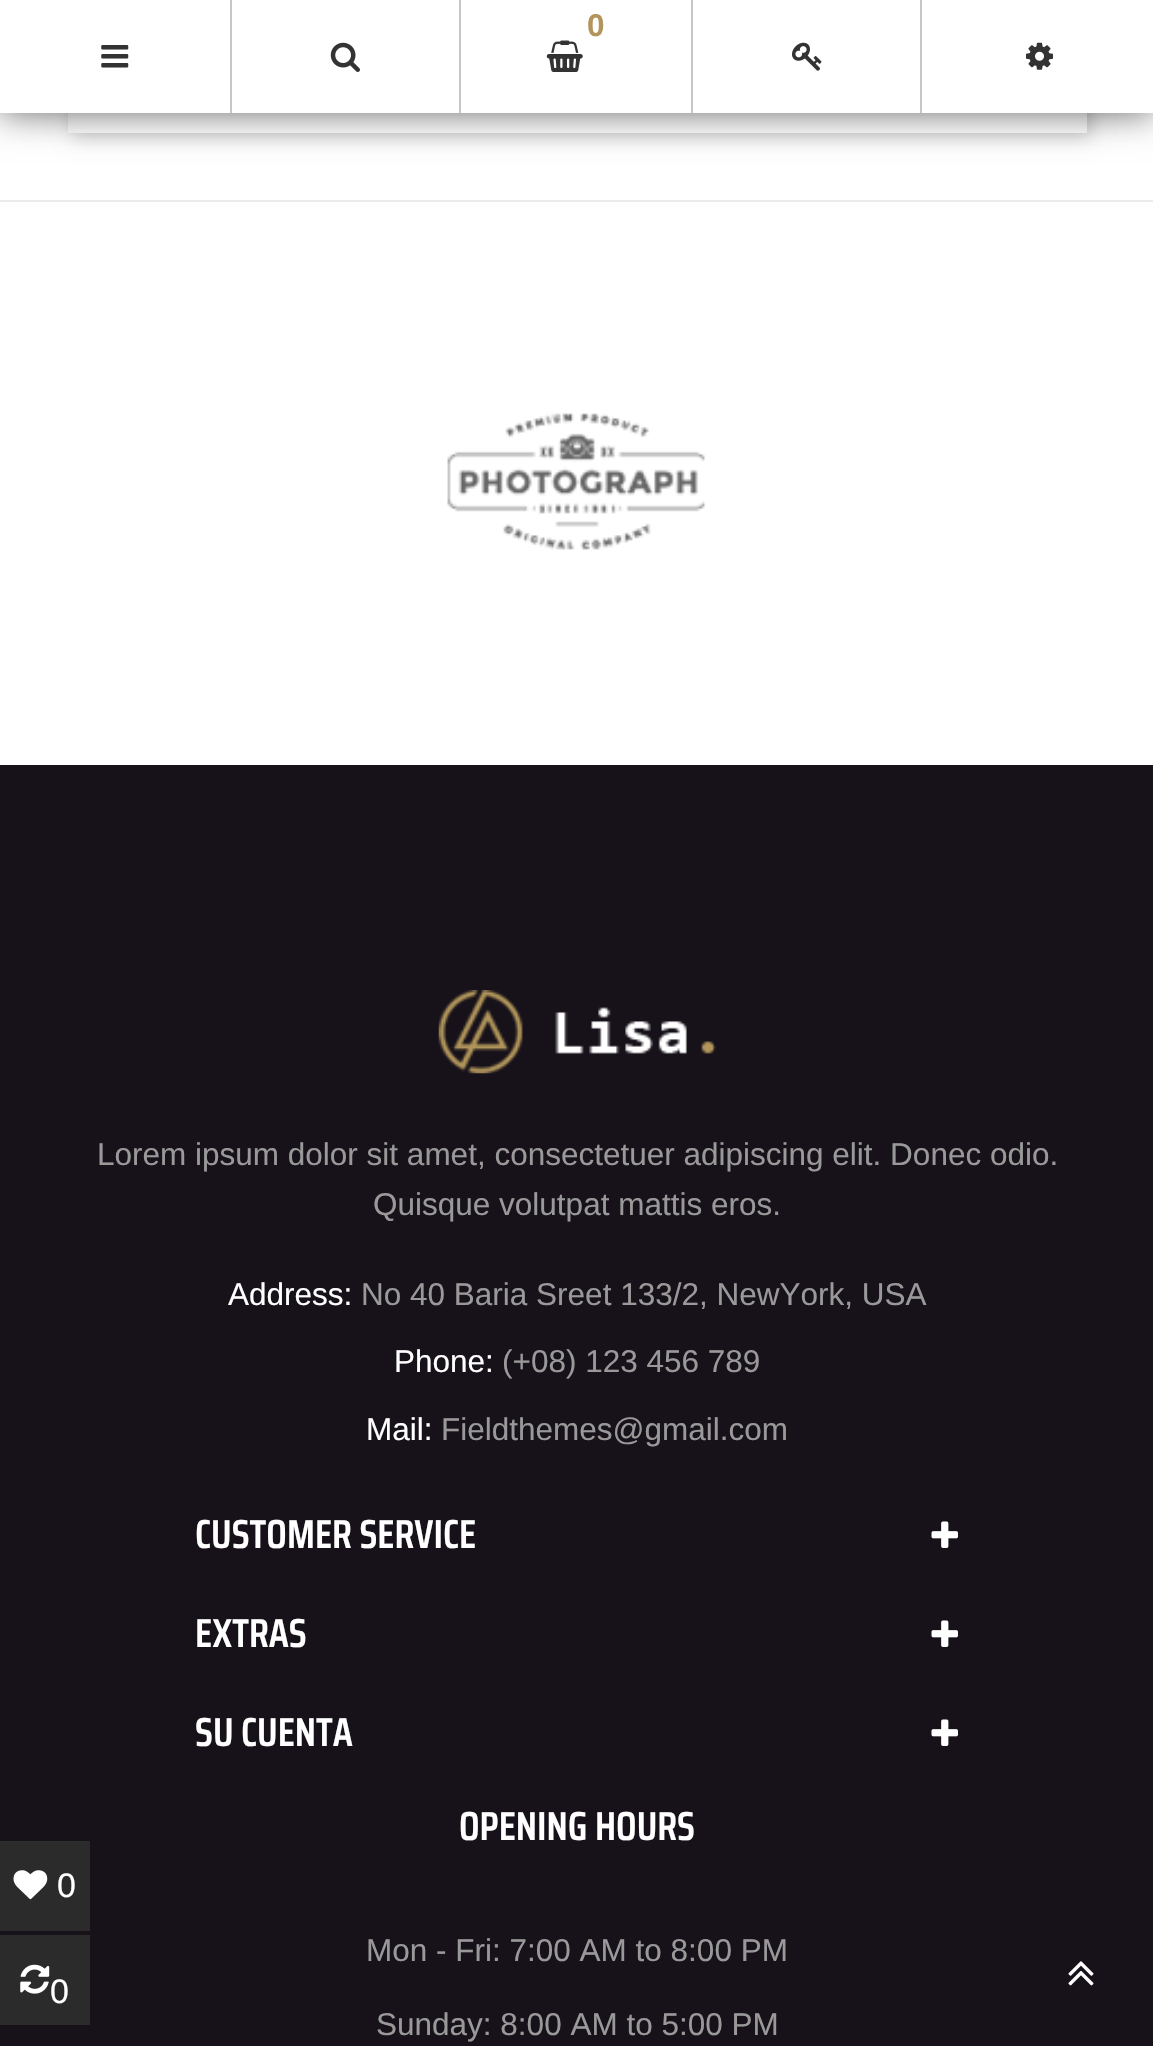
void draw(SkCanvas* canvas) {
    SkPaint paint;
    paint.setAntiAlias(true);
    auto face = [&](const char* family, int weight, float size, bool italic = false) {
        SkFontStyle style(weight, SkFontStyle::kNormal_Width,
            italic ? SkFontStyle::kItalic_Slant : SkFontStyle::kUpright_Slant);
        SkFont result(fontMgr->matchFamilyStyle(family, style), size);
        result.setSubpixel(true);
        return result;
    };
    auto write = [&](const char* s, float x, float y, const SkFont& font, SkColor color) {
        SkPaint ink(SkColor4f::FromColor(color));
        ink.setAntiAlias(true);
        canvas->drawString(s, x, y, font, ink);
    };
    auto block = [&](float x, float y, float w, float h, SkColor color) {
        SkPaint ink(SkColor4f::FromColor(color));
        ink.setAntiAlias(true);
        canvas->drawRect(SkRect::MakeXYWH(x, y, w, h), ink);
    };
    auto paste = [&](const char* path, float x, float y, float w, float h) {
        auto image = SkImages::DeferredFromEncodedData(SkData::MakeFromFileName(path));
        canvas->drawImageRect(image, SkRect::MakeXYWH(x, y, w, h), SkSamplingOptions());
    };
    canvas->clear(SK_ColorWHITE);
    block(0, 765, 1153, 1281, SkColorSetRGB(23, 18, 26));
    block(0, 1841, 90, 90, SkColorSetRGB(43, 43, 43));
    paste("pic1.png", 13, 1870, 35, 30);
    auto kFont1 = face("Liberation Sans", 400, 34);
    write("0", 57, 1897, kFont1, SK_ColorWHITE);
    paint.setColor(SkColorSetARGB(51, 0, 0, 0));
    paint.setMaskFilter(SkMaskFilter::MakeBlur(kNormal_SkBlurStyle, 9));
    canvas->drawRect(SkRect::MakeXYWH(72, -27, 1019, 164), paint);
    paint.setMaskFilter(nullptr);
    block(68, 113, 1019, 20, SK_ColorWHITE);
    paint.setColor(SkColorSetARGB(153, 0, 0, 0));
    paint.setMaskFilter(SkMaskFilter::MakeBlur(kNormal_SkBlurStyle, 17));
    canvas->drawRect(SkRect::MakeXYWH(0, 0, 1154, 113), paint);
    paint.setMaskFilter(nullptr);
    block(0, 0, 1153, 113, SK_ColorWHITE);
    block(230, 0, 2, 113, SkColorSetRGB(201, 197, 197));
    paste("pic2.png", 101, 45, 28, 23);
    block(459, 0, 2, 113, SkColorSetRGB(201, 197, 197));
    paste("pic3.png", 330, 42, 30, 30);
    block(691, 0, 2, 113, SkColorSetRGB(201, 197, 197));
    auto kFont2 = face("Liberation Sans", 700, 31.5f);
    write("0", 587, 36, kFont2, SkColorSetRGB(177, 149, 90));
    paste("pic4.png", 546, 40, 37, 32);
    block(920, 0, 2, 113, SkColorSetRGB(201, 197, 197));
    paste("pic5.png", 792, 42, 30, 29);
    paste("pic6.png", 1026, 42, 27, 28);
    block(0, 200, 1153, 2, SkColorSetRGB(235, 235, 235));
    paste("pic7.png", 447, 413, 258, 137);
    paste("pic8.png", 438, 990, 278, 84);
    auto kFont3 = face("Liberation Sans", 400, 31.5f);
    write("Lorem ipsum dolor sit amet, consectetuer adipiscing elit. Donec odio.", 97, 1165, kFont3, SkColorSetRGB(153, 153, 153));
    write("Quisque volutpat mattis eros.", 373, 1215, kFont3, SkColorSetRGB(153, 153, 153));
    write("Address:", 228, 1305, kFont3, SK_ColorWHITE);
    write("No 40 Baria Sreet 133/2, NewYork, USA", 361, 1305, kFont3, SkColorSetRGB(153, 153, 153));
    write("Phone:", 394, 1372, kFont3, SK_ColorWHITE);
    write("(+08) 123 456 789", 502, 1372, kFont3, SkColorSetRGB(153, 153, 153));
    write("Mail:", 366, 1440, kFont3, SK_ColorWHITE);
    write("Fieldthemes@gmail.com", 441, 1440, kFont3, SkColorSetRGB(153, 153, 153));
    auto kFont4 = face("Saira Condensed", 600, 40.5f);
    write("CUSTOMER SERVICE", 195, 1548, kFont4, SK_ColorWHITE);
    paste("pic9.png", 931, 1521, 27, 27);
    write("EXTRAS", 195, 1647, kFont4, SK_ColorWHITE);
    paste("pic9.png", 931, 1620, 27, 27);
    write("SU CUENTA", 195, 1746, kFont4, SK_ColorWHITE);
    paste("pic9.png", 931, 1719, 27, 27);
    write("OPENING HOURS", 459, 1840, kFont4, SK_ColorWHITE);
    write("Mon - Fri: 7:00 AM to 8:00 PM", 366, 1961, kFont3, SkColorSetRGB(153, 153, 153));
    write("Sunday: 8:00 AM to 5:00 PM", 376, 2035, kFont3, SkColorSetRGB(153, 153, 153));
    paste("pic10.png", 1068, 1961, 26, 25);
    block(0, 1935, 90, 90, SkColorSetRGB(43, 43, 43));
    paste("pic11.png", 20, 1964, 30, 30);
    write("0", 50, 2003, kFont1, SK_ColorWHITE);
}
